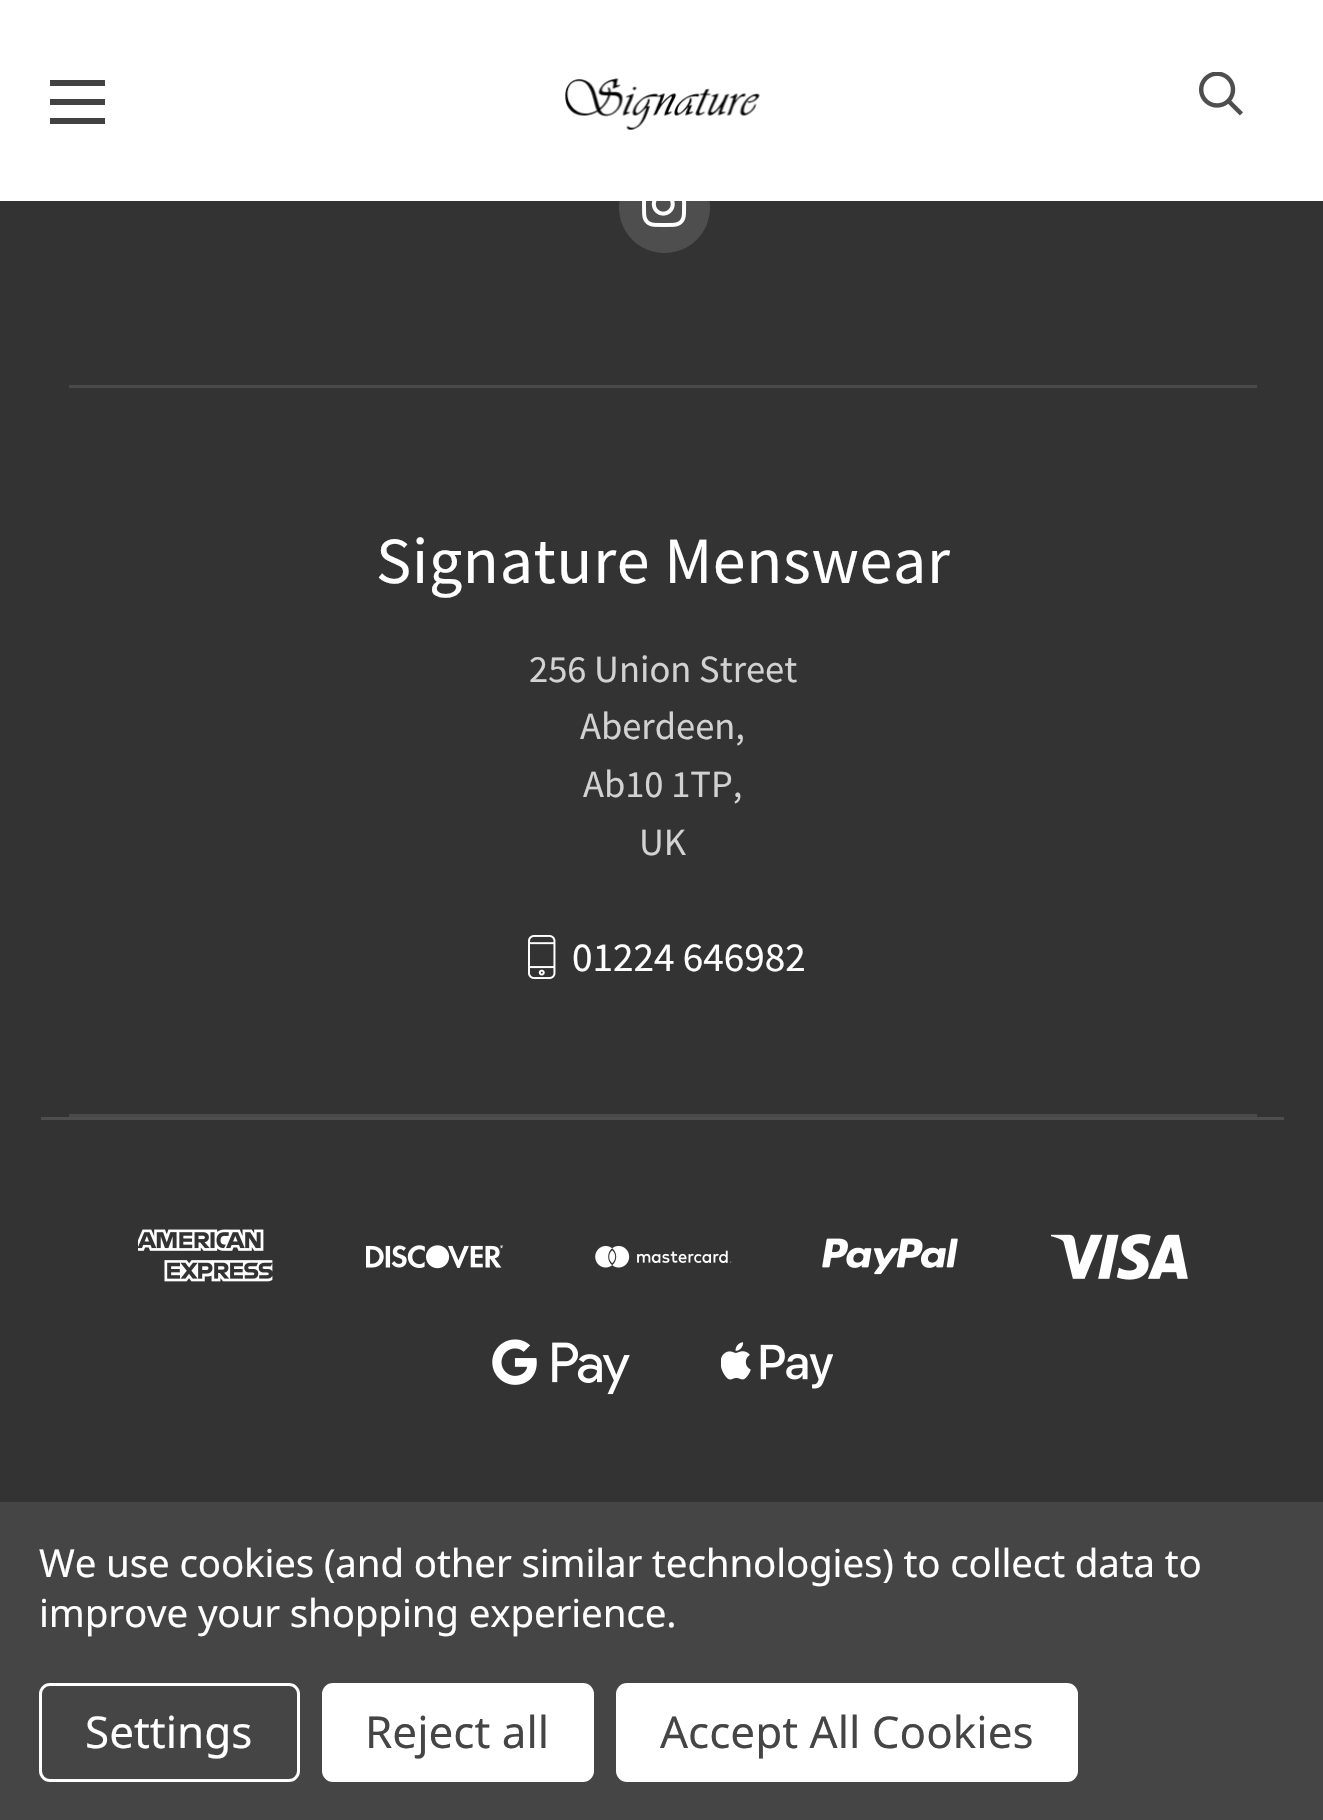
void draw(SkCanvas* canvas) {
    SkPaint paint;
    paint.setAntiAlias(true);
    auto face = [&](const char* family, int weight, float size, bool italic = false) {
        SkFontStyle style(weight, SkFontStyle::kNormal_Width,
            italic ? SkFontStyle::kItalic_Slant : SkFontStyle::kUpright_Slant);
        SkFont result(fontMgr->matchFamilyStyle(family, style), size);
        result.setSubpixel(true);
        return result;
    };
    auto write = [&](const char* s, float x, float y, const SkFont& font, SkColor color) {
        SkPaint ink(SkColor4f::FromColor(color));
        ink.setAntiAlias(true);
        canvas->drawString(s, x, y, font, ink);
    };
    auto writeSpaced = [&](const char* s, float x, float y, const SkFont& font, const SkPaint& ink, float letter, float word) {
        std::vector<SkGlyphID> glyphs(font.countText(s, strlen(s), SkTextEncoding::kUTF8));
        std::vector<float> xs(glyphs.size());
        font.textToGlyphs(s, strlen(s), SkTextEncoding::kUTF8, glyphs);
        font.getXPos(glyphs, xs, x);
        float extra = 0;
        for (size_t i = 0; i < glyphs.size(); i++) {
            xs[i] += extra;
            extra += letter + word * (glyphs[i] == font.unicharToGlyph(' '));
        }
        canvas->drawTextBlob(SkTextBlob::MakeFromPosHGlyphs(glyphs, xs, y, font), 0, 0, ink);
    };
    auto block = [&](float x, float y, float w, float h, SkColor color) {
        SkPaint ink(SkColor4f::FromColor(color));
        ink.setAntiAlias(true);
        canvas->drawRect(SkRect::MakeXYWH(x, y, w, h), ink);
    };
    auto card = [&](float x, float y, float w, float h, float radius, SkColor color) {
        SkPaint ink(SkColor4f::FromColor(color));
        ink.setAntiAlias(true);
        canvas->drawRoundRect(SkRect::MakeXYWH(x, y, w, h), radius, radius, ink);
    };
    auto paste = [&](const char* path, float x, float y, float w, float h) {
        auto image = SkImages::DeferredFromEncodedData(SkData::MakeFromFileName(path));
        canvas->drawImageRect(image, SkRect::MakeXYWH(x, y, w, h), SkSamplingOptions());
    };
    canvas->clear(SkColorSetRGB(51, 51, 51));
    paint.setColor(SkColorSetRGB(78, 78, 78));
    canvas->drawCircle(664.5f, 207.5f, 45.5f, paint);
    block(0, 0, 1323, 201, SK_ColorWHITE);
    paste("pic1.png", 565, 78, 195, 52);
    paste("pic2.png", 1199, 72, 44, 44);
    block(50, 99, 55, 6, SkColorSetRGB(66, 66, 66));
    block(50, 80, 55, 6, SkColorSetRGB(66, 66, 66));
    block(50, 118, 55, 6, SkColorSetRGB(66, 66, 66));
    block(69, 385, 1188, 3, SkColorSetRGB(74, 74, 74));
    paste("pic3.png", 642, 201, 45, 26);
    block(69, 1114, 1188, 3, SkColorSetRGB(74, 74, 74));
    auto kFont1 = face("Source Sans Pro", 400, 66);
    paint.setColor(SK_ColorWHITE);
    writeSpaced("Signature Menswear", 376, 583, kFont1, paint, 0.7f, 0);
    auto kFont2 = face("Source Sans Pro", 400, 38.5f);
    write("256 Union Street", 529, 682, kFont2, SkColorSetRGB(210, 210, 210));
    write("Aberdeen,", 580, 739, kFont2, SkColorSetRGB(210, 210, 210));
    write("Ab10 1TP,", 583, 797, kFont2, SkColorSetRGB(210, 210, 210));
    write("UK", 639, 855, kFont2, SkColorSetRGB(210, 210, 210));
    paste("pic4.png", 528, 935, 28, 44);
    auto kFont3 = face("Source Sans Pro", 400, 41.25f);
    write("01224 646982", 572, 971, kFont3, SK_ColorWHITE);
    block(41, 1117, 1243, 3, SkColorSetRGB(78, 78, 78));
    paste("pic5.png", 138, 1229, 135, 53);
    paste("pic6.png", 366, 1245, 137, 24);
    paste("pic7.png", 595, 1246, 137, 22);
    paste("pic8.png", 822, 1238, 136, 37);
    paste("pic9.png", 1051, 1234, 137, 46);
    paste("pic10.png", 492, 1339, 138, 56);
    paste("pic11.png", 721, 1342, 112, 47);
    block(0, 1502, 1323, 318, SkColorSetRGB(69, 69, 69));
    auto kFont4 = face("Noto Sans", 400, 38.5f);
    writeSpaced("We use cookies (and other similar technologies) to collect data to", 39, 1577, kFont4, paint, -0.15f, 0);
    writeSpaced("improve your shopping experience.", 39, 1627, kFont4, paint, -0.15f, 0);
    paint.setStyle(SkPaint::kStroke_Style);
    paint.setStrokeWidth(3);
    canvas->drawRoundRect(SkRect::MakeXYWH(40.5f, 1684.5f, 258, 96), 9.5f, 9.5f, paint);
    auto kFont5 = face("Noto Sans", 400, 44);
    write("Settings", 85, 1748, kFont5, SK_ColorWHITE);
    card(322, 1683, 272, 99, 11, SK_ColorWHITE);
    write("Reject all", 365, 1748, kFont5, SkColorSetRGB(69, 69, 69));
    card(616, 1683, 462, 99, 11, SK_ColorWHITE);
    write("Accept All Cookies", 660, 1748, kFont5, SkColorSetRGB(69, 69, 69));
}
